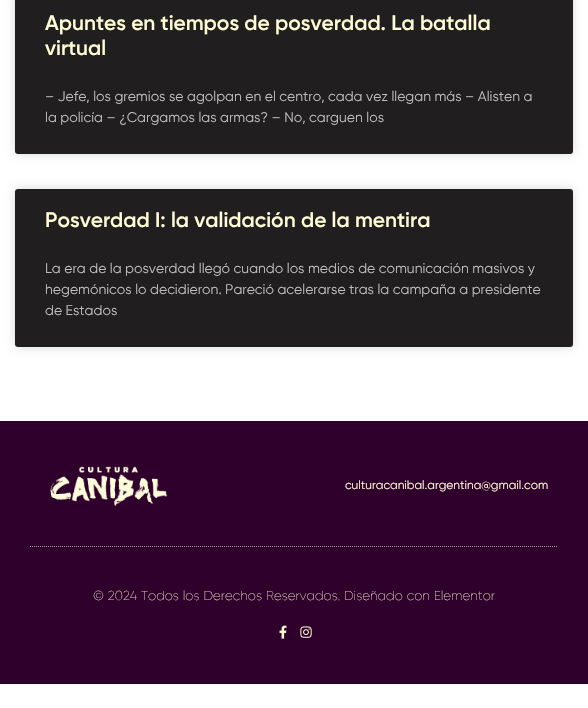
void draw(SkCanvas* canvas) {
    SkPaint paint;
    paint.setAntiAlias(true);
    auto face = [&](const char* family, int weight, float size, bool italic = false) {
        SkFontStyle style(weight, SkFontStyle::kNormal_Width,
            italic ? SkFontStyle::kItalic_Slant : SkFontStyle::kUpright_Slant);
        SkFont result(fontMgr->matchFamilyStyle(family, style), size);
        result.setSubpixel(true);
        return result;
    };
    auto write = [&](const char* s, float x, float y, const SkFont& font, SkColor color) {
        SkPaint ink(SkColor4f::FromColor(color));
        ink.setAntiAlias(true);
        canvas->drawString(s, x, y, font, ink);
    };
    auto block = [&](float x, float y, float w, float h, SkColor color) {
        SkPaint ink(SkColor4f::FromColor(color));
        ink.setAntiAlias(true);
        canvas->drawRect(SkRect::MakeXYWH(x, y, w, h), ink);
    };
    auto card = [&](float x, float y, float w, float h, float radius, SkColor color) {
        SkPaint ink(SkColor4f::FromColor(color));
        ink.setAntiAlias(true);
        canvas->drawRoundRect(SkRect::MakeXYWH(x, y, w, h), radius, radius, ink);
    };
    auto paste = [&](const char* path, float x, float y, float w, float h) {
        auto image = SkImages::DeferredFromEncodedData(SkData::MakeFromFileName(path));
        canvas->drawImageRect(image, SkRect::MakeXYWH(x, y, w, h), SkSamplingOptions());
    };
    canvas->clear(SK_ColorWHITE);
    paint.setColor(SkColorSetARGB(38, 0, 0, 0));
    paint.setMaskFilter(SkMaskFilter::MakeBlur(kNormal_SkBlurStyle, 5));
    canvas->drawRoundRect(SkRect::MakeXYWH(15, -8, 558, 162), 3, 3, paint);
    paint.setMaskFilter(nullptr);
    card(15, -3, 558, 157, 3, SkColorSetRGB(32, 30, 30));
    auto kFont1 = face("Gilroy", 600, 21);
    write("Apuntes en tiempos de posverdad. La batalla", 45, 30, kFont1, SkColorSetRGB(255, 251, 214));
    write("virtual", 45, 55, kFont1, SkColorSetRGB(255, 251, 214));
    auto kFont2 = face("Gilroy", 400, 14);
    write("– Jefe, los gremios se agolpan en el centro, cada vez llegan más – Alisten a", 45, 101, kFont2, SkColorSetRGB(188, 188, 188));
    write("la policía – ¿Cargamos las armas? – No, carguen los", 45, 122, kFont2, SkColorSetRGB(188, 188, 188));
    paint.setMaskFilter(SkMaskFilter::MakeBlur(kNormal_SkBlurStyle, 5));
    canvas->drawRoundRect(SkRect::MakeXYWH(15, 189, 558, 158), 3, 3, paint);
    paint.setMaskFilter(nullptr);
    card(15, 189, 558, 158, 3, SkColorSetRGB(32, 30, 30));
    write("Posverdad I: la validación de la mentira", 45, 227, kFont1, SkColorSetRGB(255, 251, 214));
    write("La era de la posverdad llegó cuando los medios de comunicación masivos y", 45, 273, kFont2, SkColorSetRGB(188, 188, 188));
    write("hegemónicos lo decidieron. Pareció acelerarse tras la campaña a presidente", 45, 294, kFont2, SkColorSetRGB(188, 188, 188));
    write("de Estados", 45, 315, kFont2, SkColorSetRGB(188, 188, 188));
    block(0, 421, 588, 263, SkColorSetRGB(47, 0, 43));
    paint.setStyle(SkPaint::kStroke_Style);
    paint.setStrokeWidth(1);
    paint.setColor(SkColorSetRGB(155, 155, 155));
    paint.setPathEffect(SkDashPathEffect::Make({{1, 1}}, 0));
    canvas->drawPath(SkPathBuilder().moveTo(30, 546.5f).lineTo(558, 546.5f).detach(), paint);
    paint.setPathEffect(nullptr);
    paste("pic1.png", 50, 466, 117, 40);
    auto kFont3 = face("Gilroy", 400, 12);
    write("culturacanibal.argentina@gmail.com", 345, 489, kFont3, SkColorSetRGB(255, 251, 214));
    auto kFont4 = face("Gilroy", 100, 13);
    write("© 2024 Todos los Derechos Reservados. Diseñado con Elementor", 93, 600, kFont4, SkColorSetRGB(255, 251, 214));
    paste("pic2.png", 279, 625, 8, 14);
    paste("pic3.png", 300, 626, 12, 12);
}
